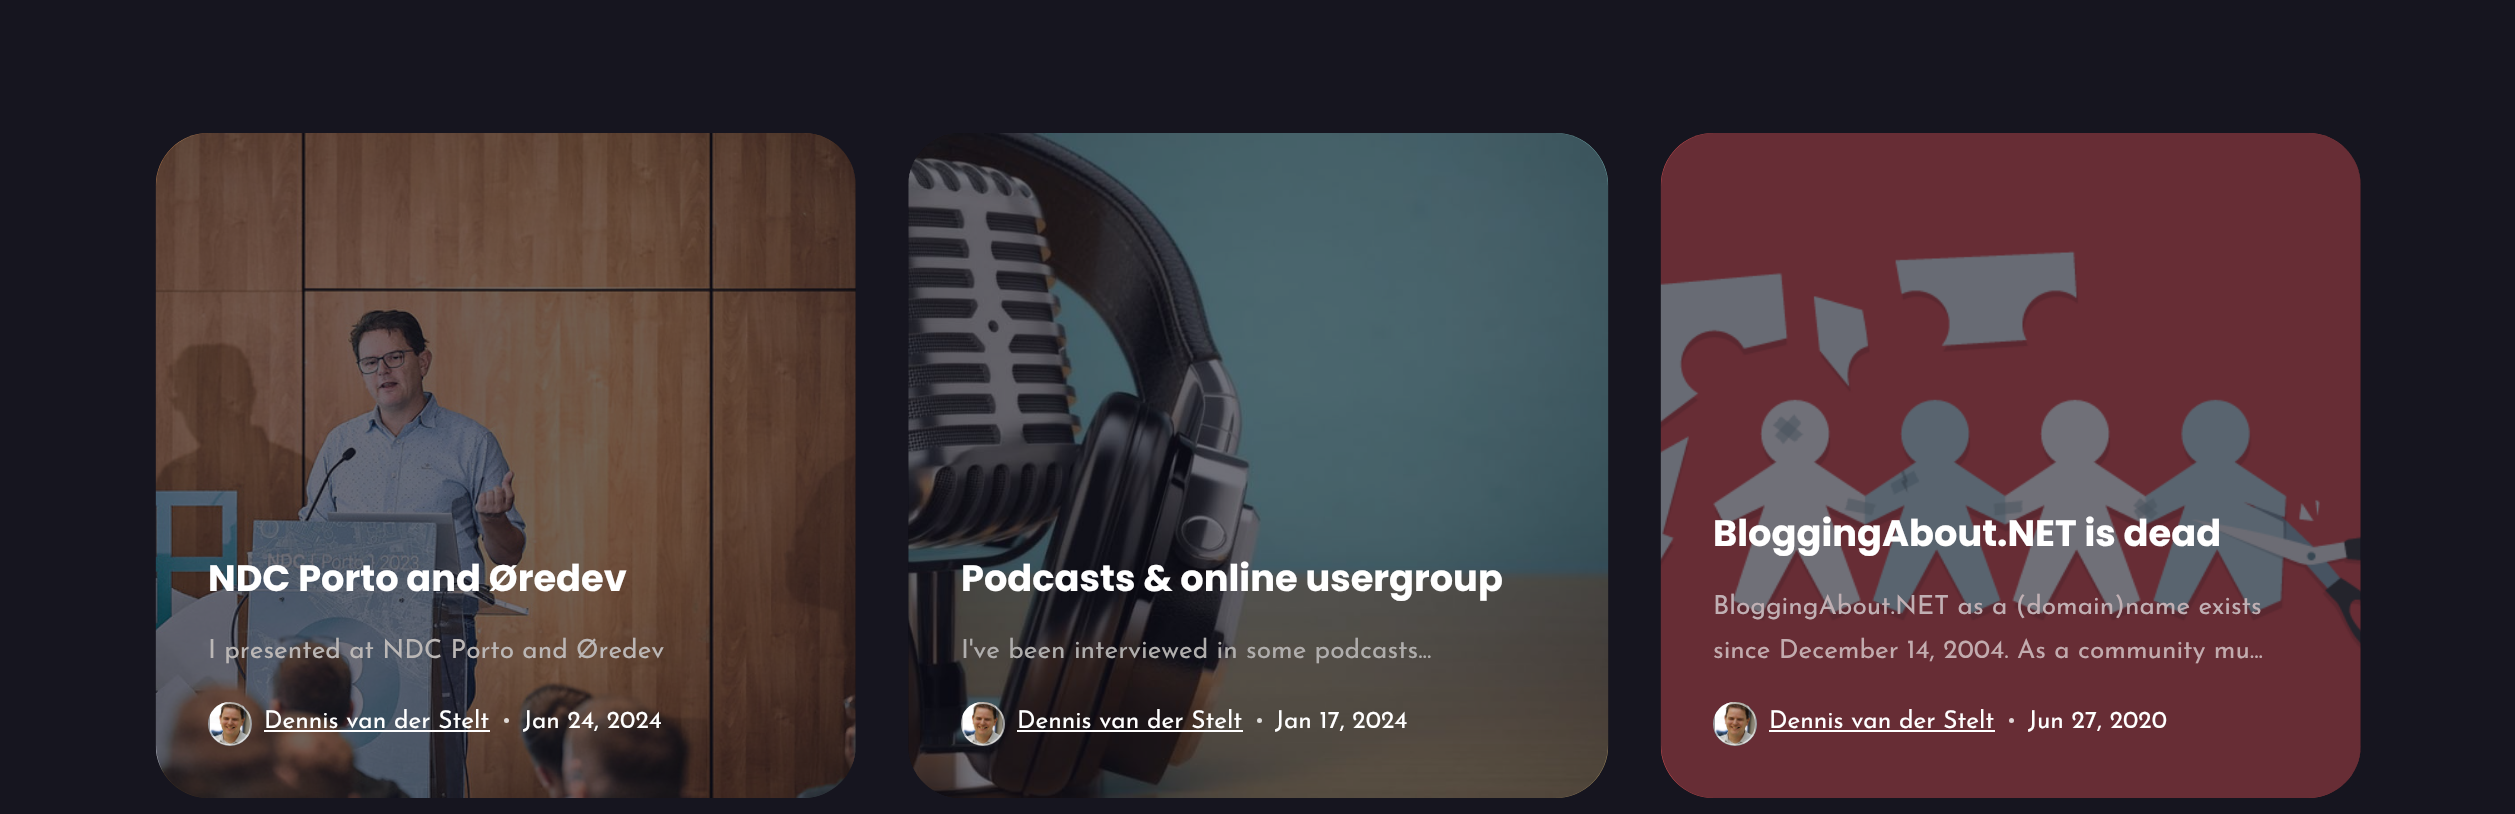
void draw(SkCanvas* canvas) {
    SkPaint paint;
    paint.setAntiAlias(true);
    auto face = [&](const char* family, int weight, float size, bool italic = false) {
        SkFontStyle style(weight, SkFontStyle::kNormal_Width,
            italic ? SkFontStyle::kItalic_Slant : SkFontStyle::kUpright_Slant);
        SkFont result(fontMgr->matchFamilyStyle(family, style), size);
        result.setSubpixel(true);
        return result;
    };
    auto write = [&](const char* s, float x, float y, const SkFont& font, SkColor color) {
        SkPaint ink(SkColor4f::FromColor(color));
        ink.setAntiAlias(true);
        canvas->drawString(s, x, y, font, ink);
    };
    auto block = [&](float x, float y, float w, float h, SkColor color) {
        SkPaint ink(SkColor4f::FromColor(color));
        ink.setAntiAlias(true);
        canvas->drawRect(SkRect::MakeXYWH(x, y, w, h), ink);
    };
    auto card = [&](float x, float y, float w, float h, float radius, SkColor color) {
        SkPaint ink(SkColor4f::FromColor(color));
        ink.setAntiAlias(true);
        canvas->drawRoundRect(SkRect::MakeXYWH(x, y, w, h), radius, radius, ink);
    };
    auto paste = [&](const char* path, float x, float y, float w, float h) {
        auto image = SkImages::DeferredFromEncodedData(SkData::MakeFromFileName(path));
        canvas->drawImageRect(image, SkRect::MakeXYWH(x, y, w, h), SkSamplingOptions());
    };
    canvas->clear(SkColorSetRGB(22, 21, 31));
    card(156, 133, 700, 665, 53, SkColorSetRGB(10, 10, 18));
    paste("pic1.png", 155, 133, 701, 665);
    card(156, 133, 700, 665, 53, SkColorSetARGB(153, 16, 17, 30));
    auto kFont1 = face("Poppins", 700, 36.75f);
    write("NDC Porto and Øredev", 208, 591, kFont1, SK_ColorWHITE);
    auto kFont2 = face("Josefin Sans", 400, 26.25f);
    write("I presented at NDC Porto and Øredev", 208, 658, kFont2, SkColorSetRGB(187, 183, 182));
    paint.setColor(SkColorSetRGB(10, 10, 18));
    canvas->drawCircle(230, 724, 22, paint);
    paste("pic2.png", 210, 702, 41, 44);
    paint.setStyle(SkPaint::kStroke_Style);
    paint.setStrokeWidth(2);
    paint.setColor(SkColorSetARGB(153, 255, 255, 255));
    canvas->drawCircle(230, 724, 21, paint);
    auto kFont3 = face("Josefin Sans", 400, 24.5f);
    write("Dennis van der Stelt", 264, 728, kFont3, SK_ColorWHITE);
    block(264, 730, 226, 2, SK_ColorWHITE);
    paint.setStyle(SkPaint::kFill_Style);
    paint.setColor(SkColorSetARGB(204, 255, 255, 255));
    canvas->drawCircle(506.5f, 720.5f, 2.5f, paint);
    write("Jan 24, 2024", 523, 728, kFont3, SK_ColorWHITE);
    card(908, 133, 700, 665, 53, SkColorSetRGB(10, 10, 18));
    paste("pic3.png", 908, 133, 701, 665);
    card(908, 133, 700, 665, 53, SkColorSetARGB(153, 16, 17, 30));
    write("Podcasts & online usergroup", 961, 591, kFont1, SK_ColorWHITE);
    write("I've been interviewed in some podcasts...", 961, 658, kFont2, SkColorSetRGB(176, 174, 173));
    paint.setColor(SkColorSetRGB(10, 10, 18));
    canvas->drawCircle(983, 724, 22, paint);
    paste("pic4.png", 962, 702, 41, 44);
    paint.setStyle(SkPaint::kStroke_Style);
    paint.setColor(SkColorSetARGB(153, 255, 255, 255));
    canvas->drawCircle(983, 724, 21, paint);
    write("Dennis van der Stelt", 1017, 728, kFont3, SK_ColorWHITE);
    block(1017, 730, 226, 2, SK_ColorWHITE);
    paint.setStyle(SkPaint::kFill_Style);
    paint.setColor(SkColorSetRGB(220, 219, 217));
    canvas->drawCircle(1259.5f, 720.5f, 2.5f, paint);
    write("Jan 17, 2024", 1275, 728, kFont3, SK_ColorWHITE);
    card(1661, 133, 700, 665, 53, SkColorSetRGB(10, 10, 18));
    paste("pic5.png", 1660, 133, 701, 665);
    card(1661, 133, 700, 665, 53, SkColorSetARGB(153, 16, 17, 30));
    write("BloggingAbout.NET is dead", 1713, 546, kFont1, SK_ColorWHITE);
    write("BloggingAbout.NET as a (domain)name exists", 1713, 614, kFont2, SkColorSetRGB(193, 176, 180));
    write("since December 14, 2004. As a community mu...", 1713, 658, kFont2, SkColorSetRGB(194, 171, 174));
    paint.setColor(SkColorSetRGB(10, 10, 18));
    canvas->drawCircle(1735, 724, 22, paint);
    paste("pic6.png", 1715, 702, 41, 44);
    paint.setStyle(SkPaint::kStroke_Style);
    paint.setColor(SkColorSetARGB(153, 255, 255, 255));
    canvas->drawCircle(1735, 724, 21, paint);
    write("Dennis van der Stelt", 1769, 728, kFont3, SK_ColorWHITE);
    block(1769, 730, 226, 2, SK_ColorWHITE);
    paint.setStyle(SkPaint::kFill_Style);
    paint.setColor(SkColorSetRGB(224, 213, 214));
    canvas->drawCircle(2011.5f, 720.5f, 2.5f, paint);
    write("Jun 27, 2020", 2028, 728, kFont3, SK_ColorWHITE);
}
